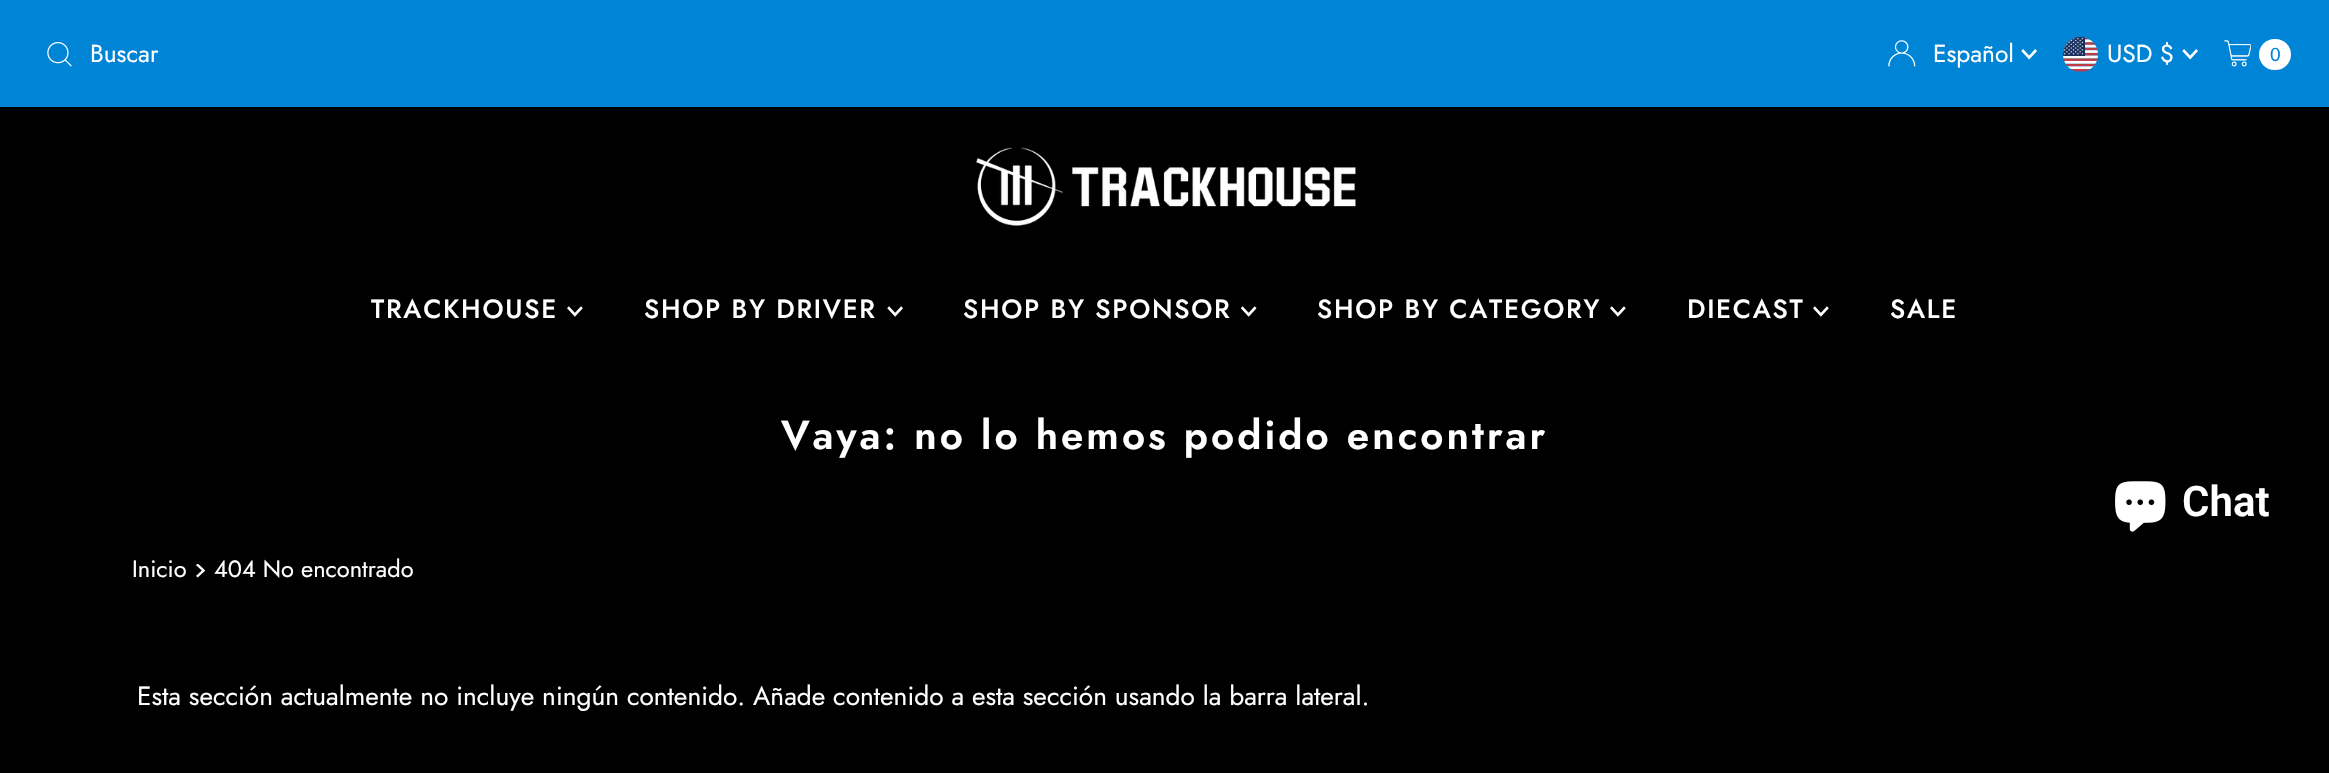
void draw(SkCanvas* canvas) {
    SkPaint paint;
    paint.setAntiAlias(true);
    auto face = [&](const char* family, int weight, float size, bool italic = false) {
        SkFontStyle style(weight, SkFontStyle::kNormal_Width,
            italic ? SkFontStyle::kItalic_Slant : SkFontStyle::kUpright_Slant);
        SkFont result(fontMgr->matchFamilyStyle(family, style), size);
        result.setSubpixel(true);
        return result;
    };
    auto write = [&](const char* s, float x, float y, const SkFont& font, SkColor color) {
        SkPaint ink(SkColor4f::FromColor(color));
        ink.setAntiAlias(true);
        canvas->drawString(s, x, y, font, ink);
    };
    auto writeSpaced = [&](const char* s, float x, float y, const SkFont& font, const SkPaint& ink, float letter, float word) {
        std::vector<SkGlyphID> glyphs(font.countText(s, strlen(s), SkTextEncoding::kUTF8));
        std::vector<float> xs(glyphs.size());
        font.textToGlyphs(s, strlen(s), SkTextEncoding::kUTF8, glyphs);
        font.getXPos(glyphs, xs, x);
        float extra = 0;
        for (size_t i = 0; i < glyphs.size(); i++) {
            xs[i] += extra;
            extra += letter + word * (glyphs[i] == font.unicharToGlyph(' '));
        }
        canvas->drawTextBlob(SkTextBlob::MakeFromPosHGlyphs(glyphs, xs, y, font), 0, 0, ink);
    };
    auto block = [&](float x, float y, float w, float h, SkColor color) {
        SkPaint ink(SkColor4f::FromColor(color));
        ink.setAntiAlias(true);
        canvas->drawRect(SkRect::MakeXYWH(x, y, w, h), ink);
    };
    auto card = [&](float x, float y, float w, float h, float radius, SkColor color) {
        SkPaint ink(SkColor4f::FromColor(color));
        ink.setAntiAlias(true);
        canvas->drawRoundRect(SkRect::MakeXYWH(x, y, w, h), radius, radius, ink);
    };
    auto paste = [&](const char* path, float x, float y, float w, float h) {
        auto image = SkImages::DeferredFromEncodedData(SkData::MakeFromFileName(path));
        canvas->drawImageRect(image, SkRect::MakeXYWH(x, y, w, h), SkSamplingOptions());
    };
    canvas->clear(SK_ColorBLACK);
    block(0, 0, 2329, 107, SkColorSetRGB(0, 132, 214));
    paste("pic1.png", 47, 42, 25, 25);
    auto kFont1 = face("Jost", 400, 24.5f);
    write("Buscar", 90, 62, kFont1, SK_ColorWHITE);
    paste("pic2.png", 1888, 40, 28, 27);
    write("Español", 1933, 62, kFont1, SK_ColorWHITE);
    paste("pic3.png", 2021, 49, 16, 11);
    paste("pic4.png", 2063, 37, 35, 35);
    write("USD $", 2107, 62, kFont1, SK_ColorWHITE);
    paste("pic3.png", 2182, 49, 16, 11);
    paste("pic5.png", 2224, 40, 27, 27);
    card(2259, 39, 32, 31, 15.5f, SK_ColorWHITE);
    auto kFont2 = face("Liberation Sans", 400, 19);
    write("0", 2270, 61, kFont2, SkColorSetRGB(0, 132, 214));
    paste("pic6.png", 976, 147, 380, 79);
    auto kFont3 = face("Jost", 500, 26.25f);
    paint.setColor(SK_ColorWHITE);
    writeSpaced("TRACKHOUSE", 371, 318, kFont3, paint, 1.75f, 0);
    paste("pic7.png", 567, 306, 16, 11);
    writeSpaced("SHOP BY DRIVER", 644, 318, kFont3, paint, 1.75f, 0);
    paste("pic8.png", 887, 306, 16, 11);
    writeSpaced("SHOP BY SPONSOR", 963, 318, kFont3, paint, 1.75f, 0);
    paste("pic9.png", 1241, 306, 16, 11);
    writeSpaced("SHOP BY CATEGORY", 1317, 318, kFont3, paint, 1.75f, 0);
    paste("pic7.png", 1610, 306, 16, 11);
    writeSpaced("DIECAST", 1687, 318, kFont3, paint, 1.75f, 0);
    paste("pic7.png", 1813, 306, 16, 11);
    writeSpaced("SALE", 1890, 318, kFont3, paint, 1.75f, 0);
    auto kFont4 = face("Jost", 600, 40.25f);
    writeSpaced("Vaya: no lo hemos podido encontrar", 781, 449, kFont4, paint, 3, 0);
    auto kFont5 = face("Jost", 400, 23.6f);
    write("Inicio", 132, 577, kFont5, SK_ColorWHITE);
    paste("pic10.png", 196, 564, 9, 14);
    write("404 No encontrado", 214, 577, kFont5, SK_ColorWHITE);
    auto kFont6 = face("Jost", 400, 26.25f);
    write("Esta sección actualmente no incluye ningún contenido. Añade contenido a esta sección usando la barra lateral.", 137, 705, kFont6, SK_ColorWHITE);
    paste("pic11.png", 2115, 481, 51, 51);
    auto kFont7 = face("Roboto", 600, 42);
    write("Chat", 2182, 516, kFont7, SK_ColorWHITE);
}
